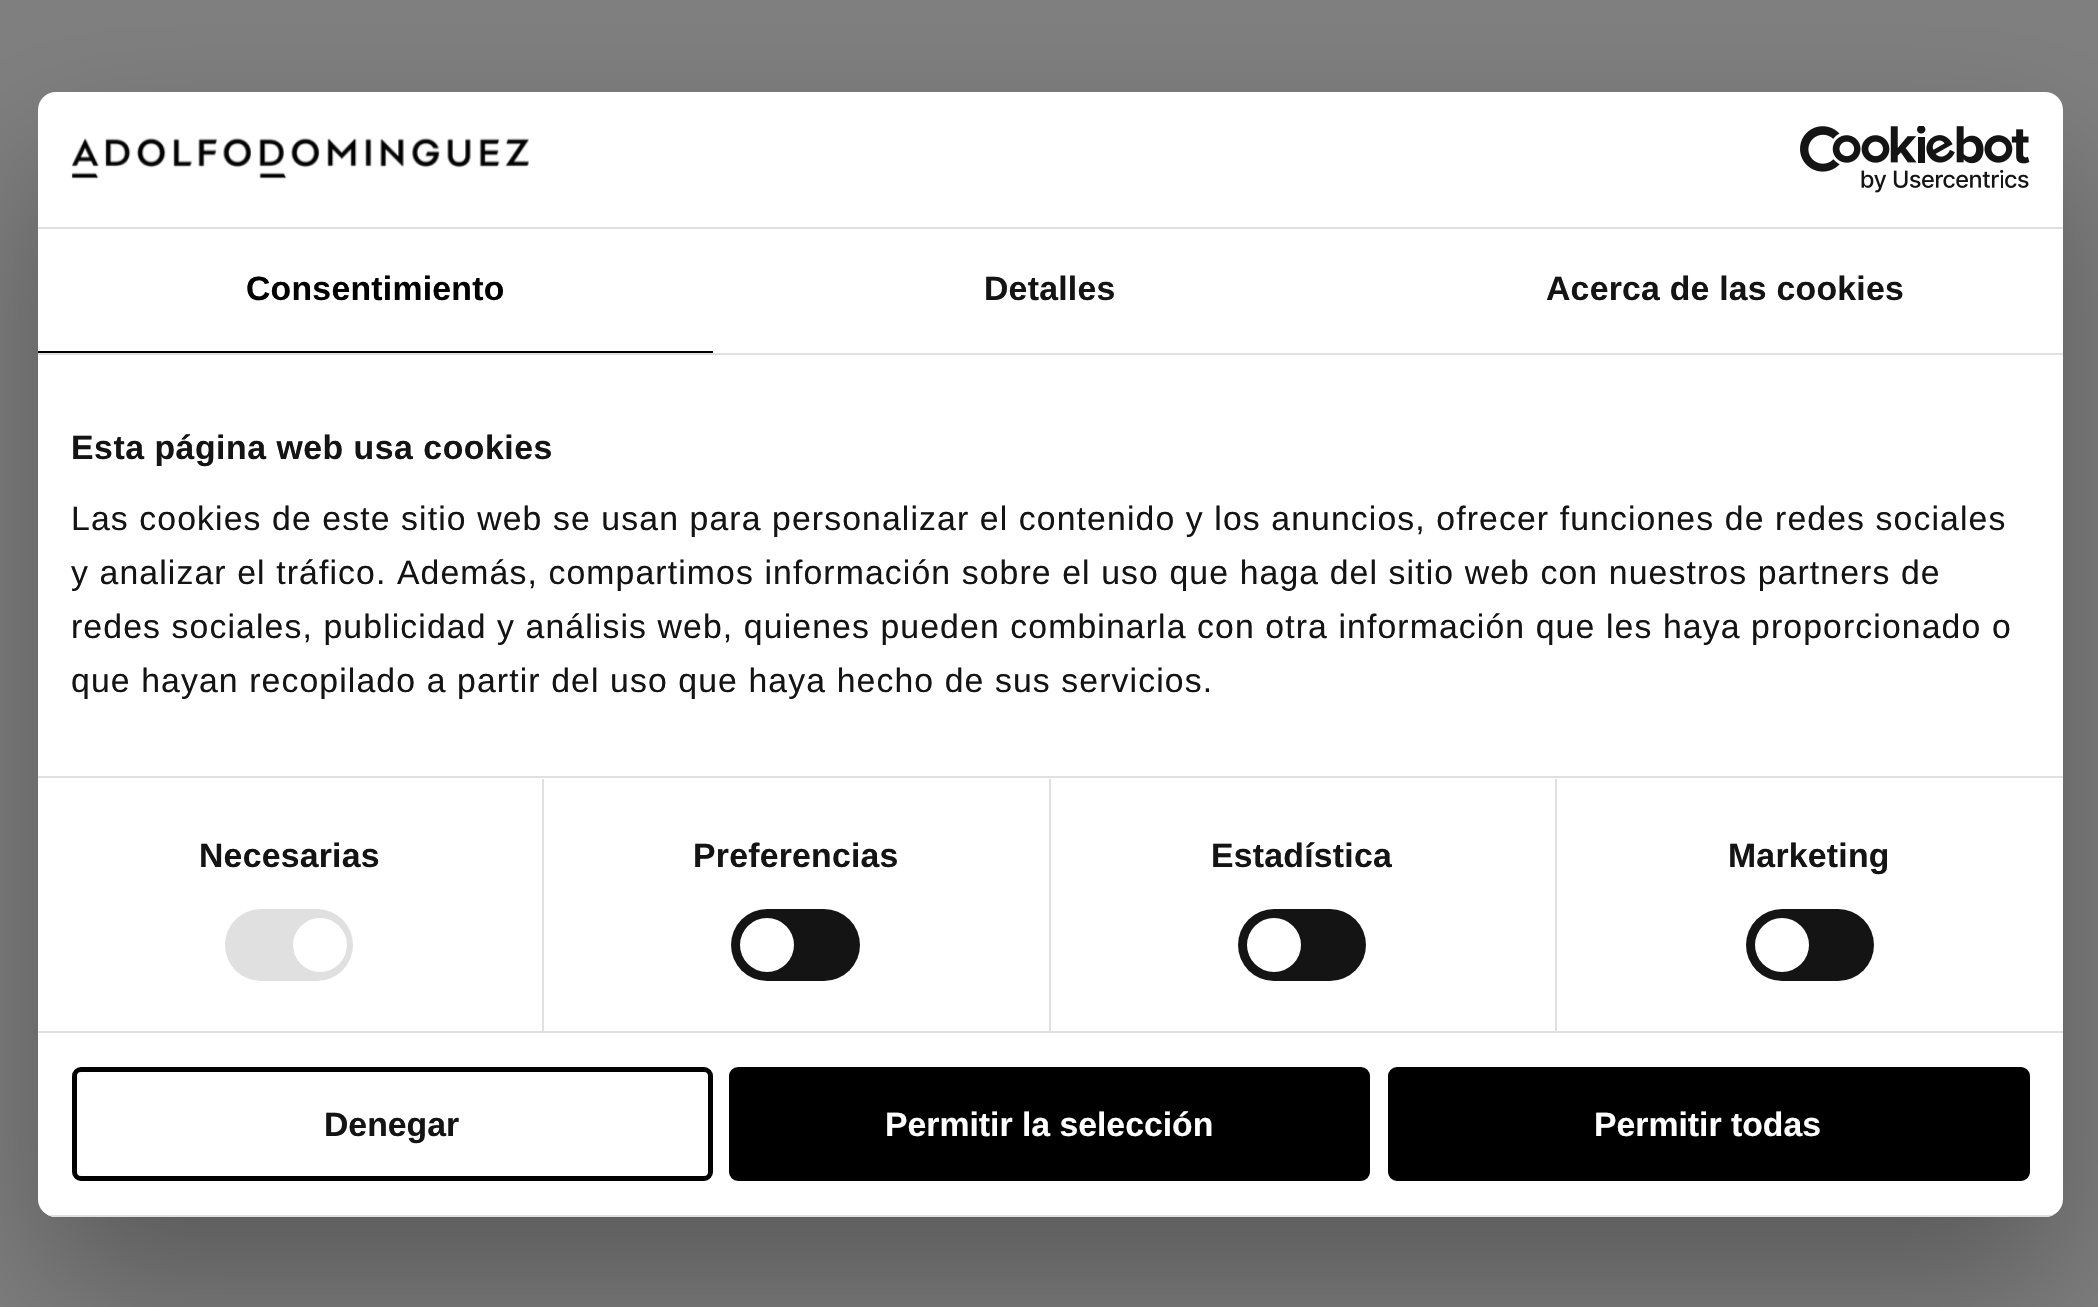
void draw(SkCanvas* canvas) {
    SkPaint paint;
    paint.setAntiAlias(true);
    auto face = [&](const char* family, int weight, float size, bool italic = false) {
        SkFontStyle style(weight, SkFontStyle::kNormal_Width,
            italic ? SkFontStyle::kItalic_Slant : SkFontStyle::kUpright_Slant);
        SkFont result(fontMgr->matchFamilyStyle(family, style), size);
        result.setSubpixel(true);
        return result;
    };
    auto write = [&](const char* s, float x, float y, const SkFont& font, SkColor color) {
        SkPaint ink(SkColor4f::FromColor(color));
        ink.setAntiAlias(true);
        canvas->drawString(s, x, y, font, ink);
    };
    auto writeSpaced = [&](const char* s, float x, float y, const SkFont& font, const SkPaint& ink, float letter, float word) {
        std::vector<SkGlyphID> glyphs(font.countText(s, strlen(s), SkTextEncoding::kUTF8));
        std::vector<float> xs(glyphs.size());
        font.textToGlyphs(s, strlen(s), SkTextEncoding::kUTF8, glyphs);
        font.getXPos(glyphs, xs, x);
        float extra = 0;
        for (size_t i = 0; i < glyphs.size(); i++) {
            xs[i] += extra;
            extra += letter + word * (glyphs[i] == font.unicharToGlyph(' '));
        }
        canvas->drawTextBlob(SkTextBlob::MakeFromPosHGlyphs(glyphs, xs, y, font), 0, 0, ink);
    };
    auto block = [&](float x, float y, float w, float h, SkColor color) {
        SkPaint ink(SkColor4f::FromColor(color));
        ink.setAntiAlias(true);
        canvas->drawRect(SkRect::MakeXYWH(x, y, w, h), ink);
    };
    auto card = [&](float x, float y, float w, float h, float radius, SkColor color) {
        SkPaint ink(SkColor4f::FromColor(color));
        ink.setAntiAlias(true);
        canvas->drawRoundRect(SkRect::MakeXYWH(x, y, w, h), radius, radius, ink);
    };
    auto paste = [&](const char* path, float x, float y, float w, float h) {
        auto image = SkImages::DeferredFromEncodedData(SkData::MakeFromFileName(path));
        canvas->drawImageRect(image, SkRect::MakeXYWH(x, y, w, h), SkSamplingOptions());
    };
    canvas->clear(SkColorSetRGB(128, 128, 128));
    paint.setColor(SkColorSetARGB(77, 0, 0, 0));
    paint.setMaskFilter(SkMaskFilter::MakeBlur(kNormal_SkBlurStyle, 76.5f));
    canvas->drawRoundRect(SkRect::MakeXYWH(38, 164, 2025, 1125), 18, 18, paint);
    paint.setMaskFilter(nullptr);
    card(38, 92, 2025, 1125, 18, SK_ColorWHITE);
    block(38, 227, 2025, 2, SkColorSetRGB(224, 224, 224));
    paste("pic1.png", 71, 138, 458, 41);
    paste("pic2.png", 1800, 126, 230, 67);
    block(38, 353, 2025, 2, SkColorSetRGB(224, 224, 224));
    block(38, 351, 675, 2, SK_ColorBLACK);
    auto kFont1 = face("Liberation Sans", 700, 33.75f);
    paint.setColor(SK_ColorBLACK);
    writeSpaced("Consentimiento", 246, 300, kFont1, paint, 0.25f, 0);
    paint.setColor(SkColorSetRGB(20, 20, 20));
    writeSpaced("Detalles", 984, 300, kFont1, paint, 0.25f, 0);
    writeSpaced("Acerca de las cookies", 1546, 300, kFont1, paint, 0.25f, 0);
    block(38, 776, 2025, 2, SkColorSetRGB(224, 224, 224));
    writeSpaced("Esta página web usa cookies", 71, 459, kFont1, paint, 0.55f, 0);
    auto kFont2 = face("Liberation Sans", 400, 33.75f);
    writeSpaced("Las cookies de este sitio web se usan para personalizar el contenido y los anuncios, ofrecer funciones de redes sociales", 71, 530, kFont2, paint, 1.12f, 0);
    writeSpaced("y analizar el tráfico. Además, compartimos información sobre el uso que haga del sitio web con nuestros partners de", 71, 584, kFont2, paint, 1.12f, 0);
    writeSpaced("redes sociales, publicidad y análisis web, quienes pueden combinarla con otra información que les haya proporcionado o", 71, 638, kFont2, paint, 1.12f, 0);
    writeSpaced("que hayan recopilado a partir del uso que haya hecho de sus servicios.", 71, 692, kFont2, paint, 1.12f, 0);
    block(38, 1031, 2025, 2, SkColorSetRGB(224, 224, 224));
    block(542, 779, 2, 252, SkColorSetRGB(224, 224, 224));
    writeSpaced("Necesarias", 199, 867, kFont1, paint, 0.25f, 0);
    card(225, 909, 128, 72, 36, SkColorSetRGB(224, 224, 224));
    paint.setColor(SK_ColorWHITE);
    canvas->drawCircle(320, 945, 27, paint);
    block(1049, 779, 2, 252, SkColorSetRGB(224, 224, 224));
    paint.setColor(SkColorSetRGB(20, 20, 20));
    writeSpaced("Preferencias", 693, 867, kFont1, paint, 0.25f, 0);
    card(731, 909, 129, 72, 36, SkColorSetRGB(20, 20, 20));
    paint.setColor(SK_ColorWHITE);
    canvas->drawCircle(767, 945, 27, paint);
    block(1555, 779, 2, 252, SkColorSetRGB(224, 224, 224));
    paint.setColor(SkColorSetRGB(20, 20, 20));
    writeSpaced("Estadística", 1211, 867, kFont1, paint, 0.25f, 0);
    card(1238, 909, 128, 72, 36, SkColorSetRGB(20, 20, 20));
    paint.setColor(SK_ColorWHITE);
    canvas->drawCircle(1274, 945, 27, paint);
    paint.setColor(SkColorSetRGB(20, 20, 20));
    writeSpaced("Marketing", 1728, 867, kFont1, paint, 0.25f, 0);
    card(1746, 909, 128, 72, 36, SkColorSetRGB(20, 20, 20));
    paint.setColor(SK_ColorWHITE);
    canvas->drawCircle(1782, 945, 27, paint);
    canvas->save();
    canvas->clipPath(SkPathBuilder().moveTo(56, 92).lineTo(2045, 92).cubicTo(2055, 92, 2063, 100, 2063, 110).lineTo(2063, 1199).cubicTo(2063, 1209, 2055, 1217, 2045, 1217).lineTo(56, 1217).cubicTo(46, 1217, 38, 1209, 38, 1199).lineTo(38, 110).cubicTo(38, 100, 46, 92, 56, 92).close().detach(), true);
    block(48, 1215, 2005, 2, SkColorSetRGB(224, 224, 224));
    canvas->restore();
    paint.setStyle(SkPaint::kStroke_Style);
    paint.setStrokeWidth(5);
    paint.setColor(SK_ColorBLACK);
    canvas->drawRoundRect(SkRect::MakeXYWH(74.5f, 1069.5f, 636, 109), 6.5f, 6.5f, paint);
    write("Denegar", 324, 1136, kFont1, SkColorSetRGB(20, 20, 20));
    paint.setStyle(SkPaint::kFill_Style);
    canvas->drawRoundRect(SkRect::MakeXYWH(731.5f, 1069.5f, 636, 109), 6.5f, 6.5f, paint);
    paint.setStyle(SkPaint::kStroke_Style);
    canvas->drawRoundRect(SkRect::MakeXYWH(731.5f, 1069.5f, 636, 109), 6.5f, 6.5f, paint);
    write("Permitir la selección", 885, 1136, kFont1, SK_ColorWHITE);
    paint.setStyle(SkPaint::kFill_Style);
    canvas->drawRoundRect(SkRect::MakeXYWH(1390.5f, 1069.5f, 637, 109), 6.5f, 6.5f, paint);
    paint.setStyle(SkPaint::kStroke_Style);
    canvas->drawRoundRect(SkRect::MakeXYWH(1390.5f, 1069.5f, 637, 109), 6.5f, 6.5f, paint);
    write("Permitir todas", 1594, 1136, kFont1, SK_ColorWHITE);
}
